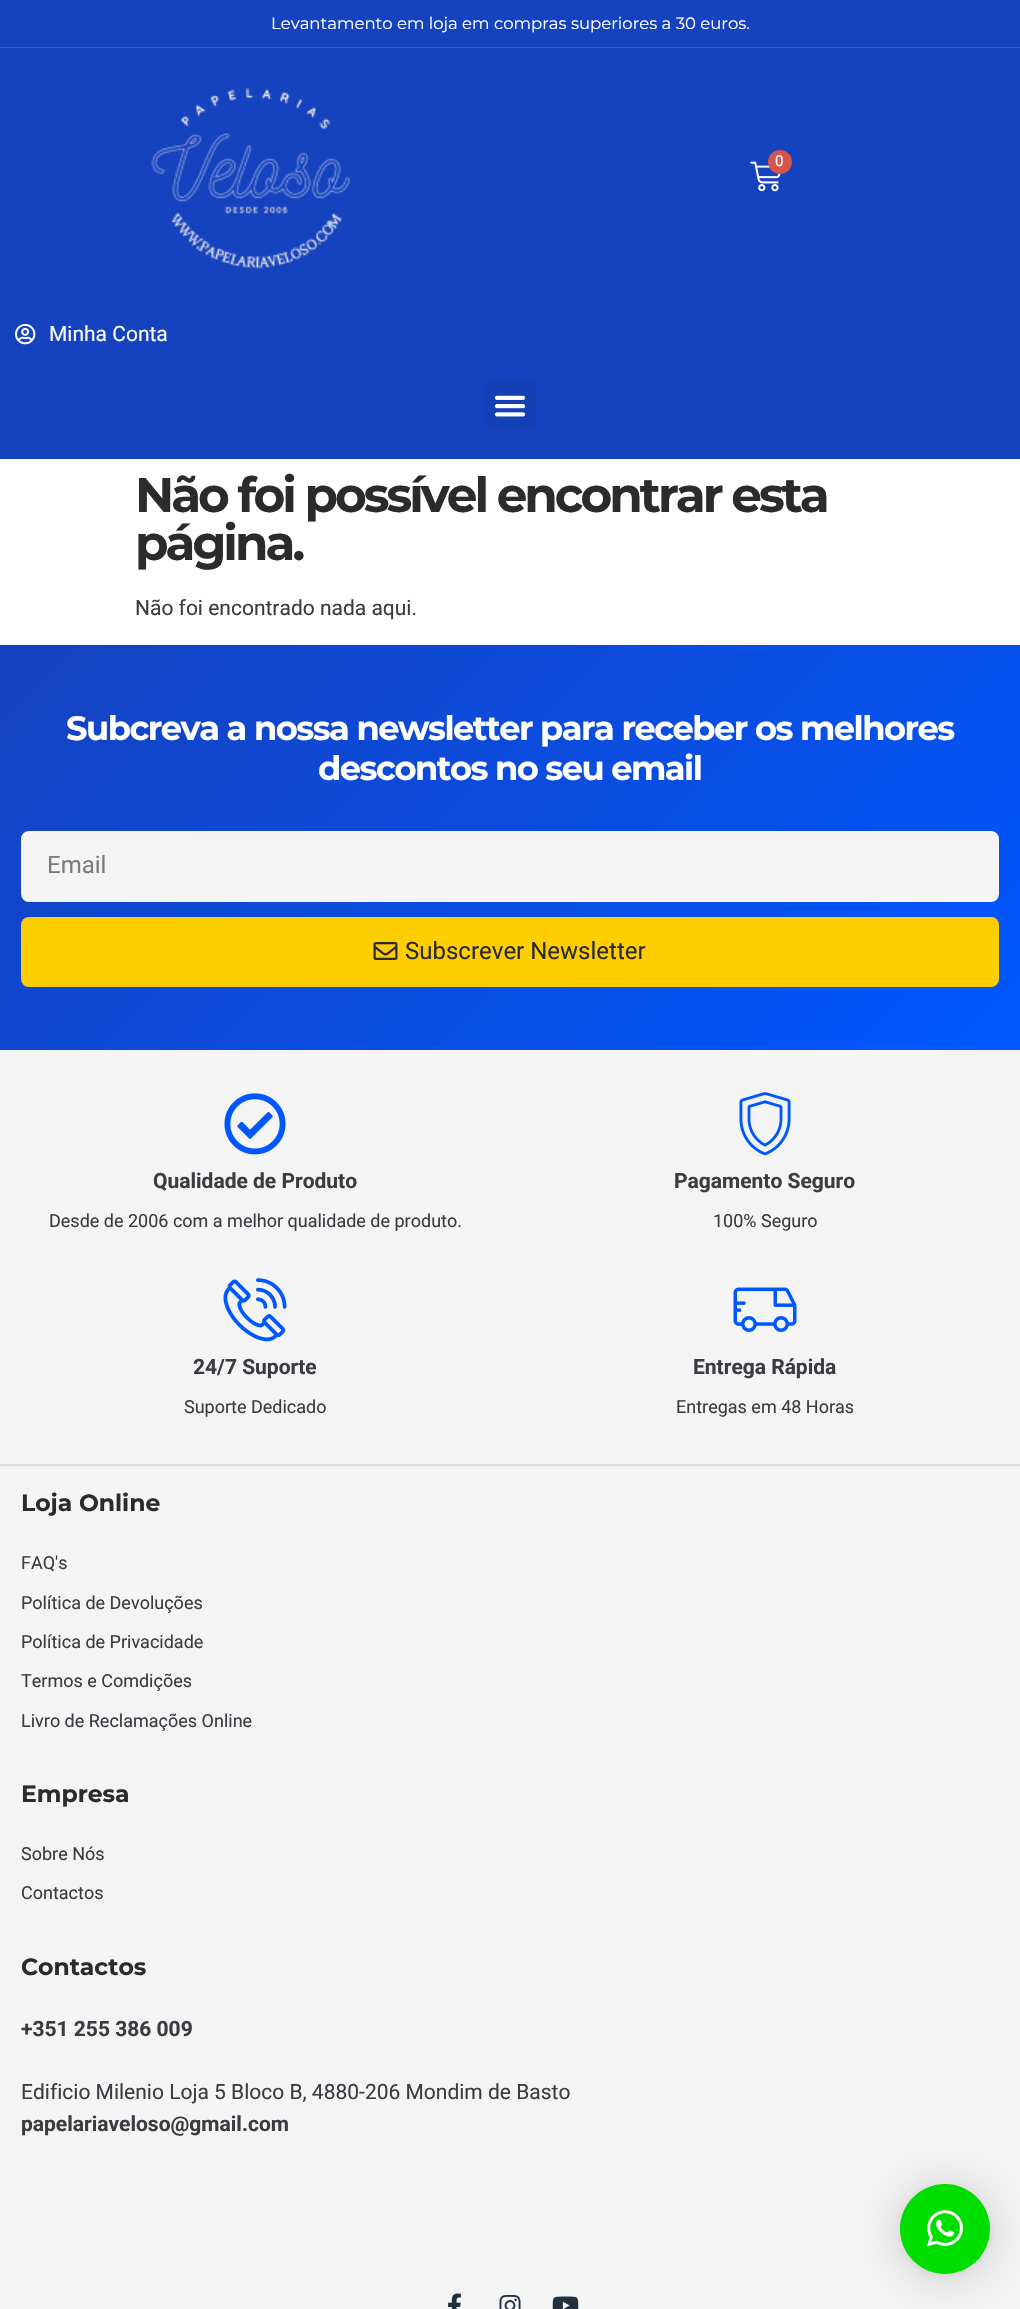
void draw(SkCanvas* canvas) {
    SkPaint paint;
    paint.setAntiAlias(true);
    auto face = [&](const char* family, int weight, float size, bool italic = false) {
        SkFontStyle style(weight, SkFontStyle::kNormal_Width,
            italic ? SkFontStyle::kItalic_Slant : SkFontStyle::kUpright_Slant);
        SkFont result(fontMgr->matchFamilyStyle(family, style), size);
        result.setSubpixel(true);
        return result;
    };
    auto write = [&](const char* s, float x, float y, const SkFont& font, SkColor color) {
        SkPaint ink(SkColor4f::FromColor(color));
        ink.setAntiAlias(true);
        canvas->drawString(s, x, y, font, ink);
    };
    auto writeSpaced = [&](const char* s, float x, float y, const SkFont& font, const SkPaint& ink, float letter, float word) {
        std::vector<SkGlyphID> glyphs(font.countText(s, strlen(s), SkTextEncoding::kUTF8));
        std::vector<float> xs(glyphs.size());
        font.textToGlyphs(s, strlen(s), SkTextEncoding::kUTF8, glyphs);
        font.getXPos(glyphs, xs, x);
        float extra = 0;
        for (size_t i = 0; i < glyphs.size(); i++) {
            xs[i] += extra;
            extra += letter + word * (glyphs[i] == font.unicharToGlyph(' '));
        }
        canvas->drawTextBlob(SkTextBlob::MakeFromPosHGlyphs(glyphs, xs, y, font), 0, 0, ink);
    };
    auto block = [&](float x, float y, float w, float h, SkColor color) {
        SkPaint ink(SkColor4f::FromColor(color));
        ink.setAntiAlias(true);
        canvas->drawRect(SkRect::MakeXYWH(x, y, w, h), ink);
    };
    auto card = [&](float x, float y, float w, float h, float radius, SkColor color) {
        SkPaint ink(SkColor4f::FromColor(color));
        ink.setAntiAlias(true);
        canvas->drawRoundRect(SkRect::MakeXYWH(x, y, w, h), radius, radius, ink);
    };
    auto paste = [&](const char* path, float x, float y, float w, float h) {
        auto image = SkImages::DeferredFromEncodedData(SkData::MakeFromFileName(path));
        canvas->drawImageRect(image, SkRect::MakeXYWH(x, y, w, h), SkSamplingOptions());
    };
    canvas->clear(SK_ColorWHITE);
    block(0, 0, 1020, 47, SkColorSetRGB(21, 66, 191));
    block(0, 47, 1020, 1, SkColorSetRGB(61, 98, 202));
    auto kFont1 = face("Montserrat", 400, 16.5f);
    write("Levantamento em loja em compras superiores a 30 euros.", 271, 29, kFont1, SK_ColorWHITE);
    block(0, 48, 1020, 411, SkColorSetRGB(21, 66, 191));
    paste("pic1.png", 151, 88, 200, 181);
    paste("pic2.png", 750, 161, 31, 31);
    paint.setColor(SkColorSetRGB(217, 83, 79));
    canvas->drawCircle(780, 162, 12, paint);
    auto kFont2 = face("Roboto", 400, 15);
    write("0", 775, 166, kFont2, SK_ColorWHITE);
    paste("pic3.png", 15, 324, 21, 21);
    auto kFont3 = face("Roboto", 400, 21);
    write("Minha Conta", 49, 341, kFont3, SK_ColorWHITE);
    card(485, 380, 51, 49, 5, SkColorSetRGB(20, 63, 181));
    paste("pic4.png", 494, 395, 32, 22);
    auto kFont4 = face("Montserrat", 700, 48.5f);
    paint.setColor(SkColorSetRGB(43, 43, 43));
    writeSpaced("Não foi possível encontrar esta", 135, 512, kFont4, paint, -3, 0);
    writeSpaced("página.", 135, 560, kFont4, paint, -3, 0);
    write("Não foi encontrado nada aqui.", 135, 615, kFont3, SkColorSetRGB(57, 60, 65));
    {
        const SkColor colors[] = {SkColorSetRGB(21, 66, 191), SkColorSetRGB(0, 87, 255)};
        const float stops[] = {0, 1};
        const SkPoint ends[] = {{154, 491}, {866, 1204}};
        paint.setShader(SkGradientShader::MakeLinear(ends, colors, stops, 2, SkTileMode::kClamp));
        paint.setAlpha(255);
    }
    canvas->drawRect(SkRect::MakeXYWH(0, 645, 1020, 405), paint);
    auto kFont5 = face("Montserrat", 700, 33.7f);
    paint.setShader(nullptr);
    paint.setColor(SK_ColorWHITE);
    writeSpaced("Subcreva a nossa newsletter para receber os melhores", 66, 740, kFont5, paint, -1.5f, 0);
    writeSpaced("descontos no seu email", 318, 780, kFont5, paint, -1.5f, 0);
    paint.setColor(SkColorSetRGB(244, 244, 244));
    canvas->drawRoundRect(SkRect::MakeXYWH(22, 832, 976, 69), 7, 7, paint);
    paint.setStyle(SkPaint::kStroke_Style);
    paint.setStrokeWidth(2);
    canvas->drawRoundRect(SkRect::MakeXYWH(22, 832, 976, 69), 7, 7, paint);
    auto kFont6 = face("Roboto", 400, 24);
    write("Email", 47, 873, kFont6, SkColorSetRGB(123, 123, 123));
    card(21, 917, 978, 70, 8, SkColorSetRGB(255, 206, 0));
    paste("pic5.png", 373, 942, 25, 18);
    write("Subscrever Newsletter", 405, 959, kFont6, SkColorSetRGB(43, 43, 43));
    block(0, 1050, 1020, 1259, SkColorSetRGB(244, 244, 244));
    block(0, 1464, 1020, 2, SkColorSetRGB(220, 220, 222));
    paste("pic6.png", 224, 1093, 62, 62);
    auto kFont7 = face("Roboto", 700, 21);
    write("Qualidade de Produto", 153, 1188, kFont7, SkColorSetRGB(57, 60, 65));
    auto kFont8 = face("Roboto", 400, 18);
    write("Desde de 2006 com a melhor qualidade de produto.", 49, 1227, kFont8, SkColorSetRGB(57, 60, 65));
    paste("pic7.png", 739, 1092, 52, 64);
    write("Pagamento Seguro", 674, 1188, kFont7, SkColorSetRGB(57, 60, 65));
    write("100% Seguro", 713, 1227, kFont8, SkColorSetRGB(57, 60, 65));
    paste("pic8.png", 223, 1278, 64, 64);
    write("24/7 Suporte", 193, 1374, kFont7, SkColorSetRGB(57, 60, 65));
    write("Suporte Dedicado", 184, 1413, kFont8, SkColorSetRGB(57, 60, 65));
    paste("pic9.png", 733, 1287, 64, 45);
    write("Entrega Rápida", 693, 1374, kFont7, SkColorSetRGB(57, 60, 65));
    write("Entregas em 48 Horas", 676, 1413, kFont8, SkColorSetRGB(57, 60, 65));
    auto kFont9 = face("Montserrat", 700, 23.5f);
    write("Loja Online", 21, 1511, kFont9, SkColorSetRGB(43, 43, 43));
    write("FAQ's", 21, 1569, kFont8, SkColorSetRGB(57, 60, 65));
    write("Política de Devoluções", 21, 1609, kFont8, SkColorSetRGB(57, 60, 65));
    write("Política de Privacidade", 21, 1648, kFont8, SkColorSetRGB(57, 60, 65));
    write("Termos e Comdições", 21, 1687, kFont8, SkColorSetRGB(57, 60, 65));
    write("Livro de Reclamações Online", 21, 1727, kFont8, SkColorSetRGB(57, 60, 65));
    write("Empresa", 21, 1802, kFont9, SkColorSetRGB(43, 43, 43));
    write("Sobre Nós", 21, 1860, kFont8, SkColorSetRGB(57, 60, 65));
    write("Contactos", 21, 1899, kFont8, SkColorSetRGB(57, 60, 65));
    write("Contactos", 21, 1975, kFont9, SkColorSetRGB(43, 43, 43));
    write("+351 255 386 009", 21, 2036, kFont7, SkColorSetRGB(57, 60, 65));
    write("Edificio Milenio Loja 5 Bloco B, 4880-206 Mondim de Basto", 21, 2099, kFont3, SkColorSetRGB(57, 60, 65));
    write("papelariaveloso@gmail.com", 21, 2131, kFont7, SkColorSetRGB(57, 60, 65));
    paste("pic10.png", 448, 2293, 13, 16);
    paste("pic11.png", 499, 2294, 22, 15);
    paste("pic12.png", 552, 2296, 27, 13);
    paint.setStyle(SkPaint::kFill_Style);
    paint.setColor(SkColorSetARGB(41, 0, 0, 0));
    paint.setMaskFilter(SkMaskFilter::MakeBlur(kNormal_SkBlurStyle, 24));
    canvas->drawRoundRect(SkRect::MakeXYWH(900, 2187, 90, 90), 45, 45, paint);
    paint.setMaskFilter(nullptr);
    paint.setColor(SkColorSetARGB(15, 0, 0, 0));
    paint.setMaskFilter(SkMaskFilter::MakeBlur(kNormal_SkBlurStyle, 4.5f));
    canvas->drawRoundRect(SkRect::MakeXYWH(900, 2186, 90, 90), 45, 45, paint);
    paint.setMaskFilter(nullptr);
    paint.setColor(SkColorSetRGB(0, 221, 0));
    canvas->drawCircle(945, 2229, 45, paint);
    paste("pic13.png", 927, 2210, 36, 37);
}
